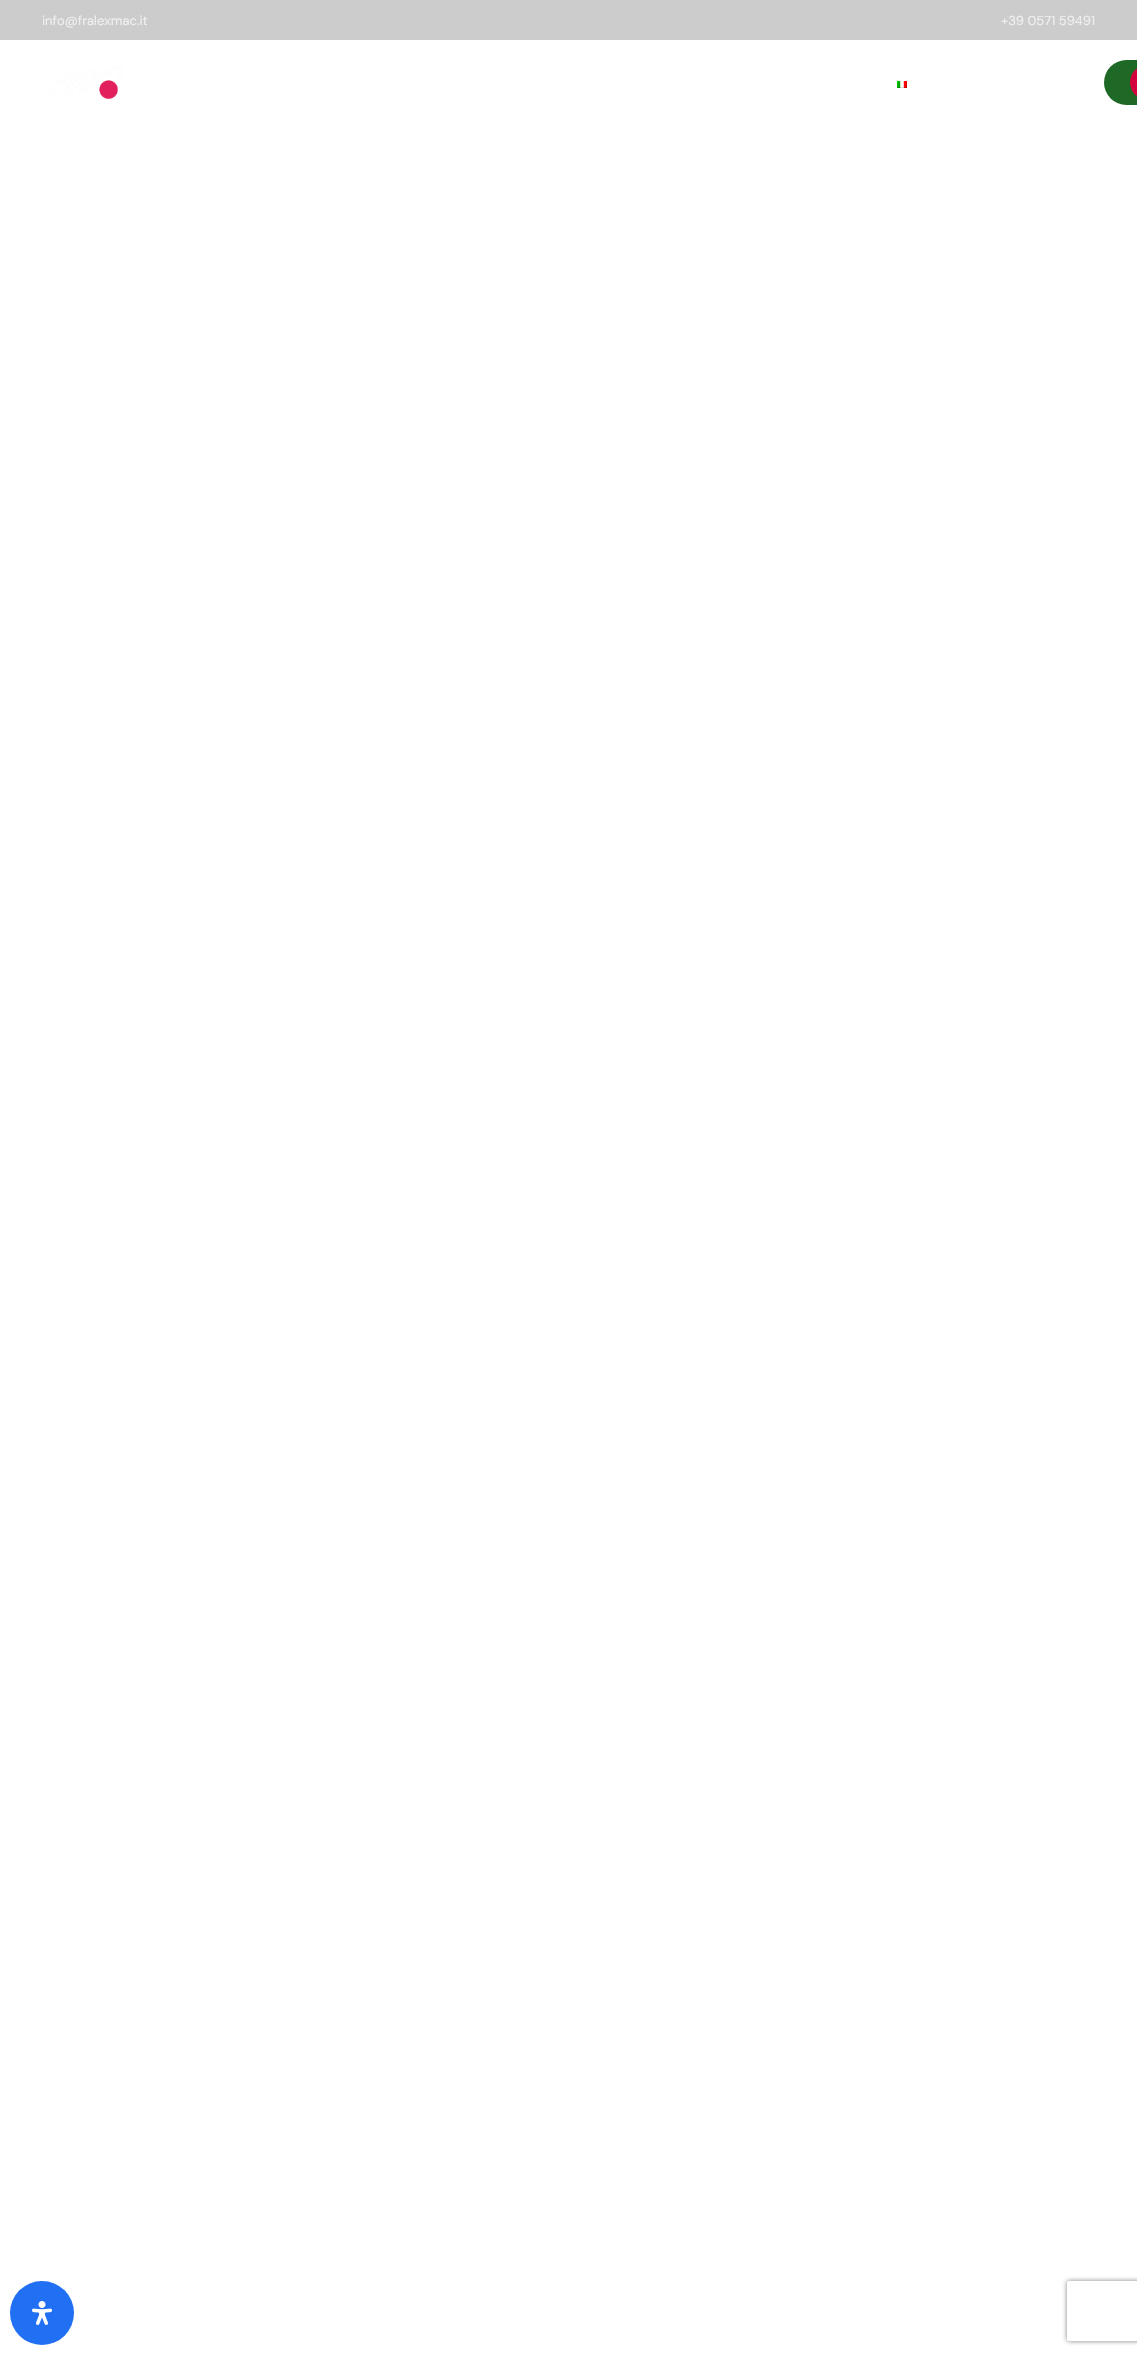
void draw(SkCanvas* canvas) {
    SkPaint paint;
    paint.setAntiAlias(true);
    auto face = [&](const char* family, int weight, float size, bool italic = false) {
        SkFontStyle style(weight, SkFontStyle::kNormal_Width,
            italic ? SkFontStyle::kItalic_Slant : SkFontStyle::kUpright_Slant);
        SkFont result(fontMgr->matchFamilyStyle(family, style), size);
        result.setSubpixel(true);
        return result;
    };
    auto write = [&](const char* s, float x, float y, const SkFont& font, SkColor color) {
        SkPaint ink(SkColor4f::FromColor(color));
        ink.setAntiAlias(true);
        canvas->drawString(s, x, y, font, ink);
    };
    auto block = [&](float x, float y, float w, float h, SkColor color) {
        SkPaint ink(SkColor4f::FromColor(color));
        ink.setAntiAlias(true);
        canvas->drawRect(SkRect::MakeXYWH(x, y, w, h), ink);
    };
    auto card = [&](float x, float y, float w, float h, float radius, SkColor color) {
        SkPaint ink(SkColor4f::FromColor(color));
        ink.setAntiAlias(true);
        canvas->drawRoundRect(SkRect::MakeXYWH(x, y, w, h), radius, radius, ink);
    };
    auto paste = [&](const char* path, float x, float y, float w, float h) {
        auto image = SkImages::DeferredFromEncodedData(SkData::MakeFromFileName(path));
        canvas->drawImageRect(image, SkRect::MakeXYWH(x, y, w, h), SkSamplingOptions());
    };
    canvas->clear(SK_ColorWHITE);
    block(0, 0, 1137, 40, SkColorSetRGB(204, 204, 204));
    auto kFont1 = face("DM Sans", 400, 13);
    write("info@fralexmac.it", 42, 25, kFont1, SkColorSetRGB(240, 240, 240));
    write("+39 0571 59491", 1001, 25, kFont1, SkColorSetRGB(240, 240, 240));
    paste("pic1.png", 44, 66, 79, 34);
    paste("pic2.png", 897, 81, 10, 7);
    card(1104, 60, 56, 45, 22.5f, SkColorSetRGB(31, 105, 38));
    paste("pic3.png", 1130, 68, 7, 29);
    paint.setColor(SkColorSetRGB(33, 111, 243));
    canvas->drawCircle(42, 2313, 32, paint);
    paste("pic4.png", 32, 2301, 20, 24);
    canvas->save();
    canvas->clipPath(SkPathBuilder(SkPathFillType::kEvenOdd).moveTo(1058, 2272).lineTo(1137, 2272).lineTo(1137, 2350).lineTo(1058, 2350).close().moveTo(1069, 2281).lineTo(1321, 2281).cubicTo(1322, 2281, 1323, 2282, 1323, 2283).lineTo(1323, 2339).cubicTo(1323, 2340, 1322, 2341, 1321, 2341).lineTo(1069, 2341).cubicTo(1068, 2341, 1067, 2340, 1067, 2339).lineTo(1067, 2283).cubicTo(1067, 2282, 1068, 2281, 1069, 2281).close().detach(), true);
    paint.setColor(SkColorSetRGB(128, 128, 128));
    paint.setMaskFilter(SkMaskFilter::MakeBlur(kNormal_SkBlurStyle, 2.5f));
    canvas->drawRoundRect(SkRect::MakeXYWH(1067, 2281, 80, 60), 2, 2, paint);
    paint.setMaskFilter(nullptr);
    canvas->restore();
}
